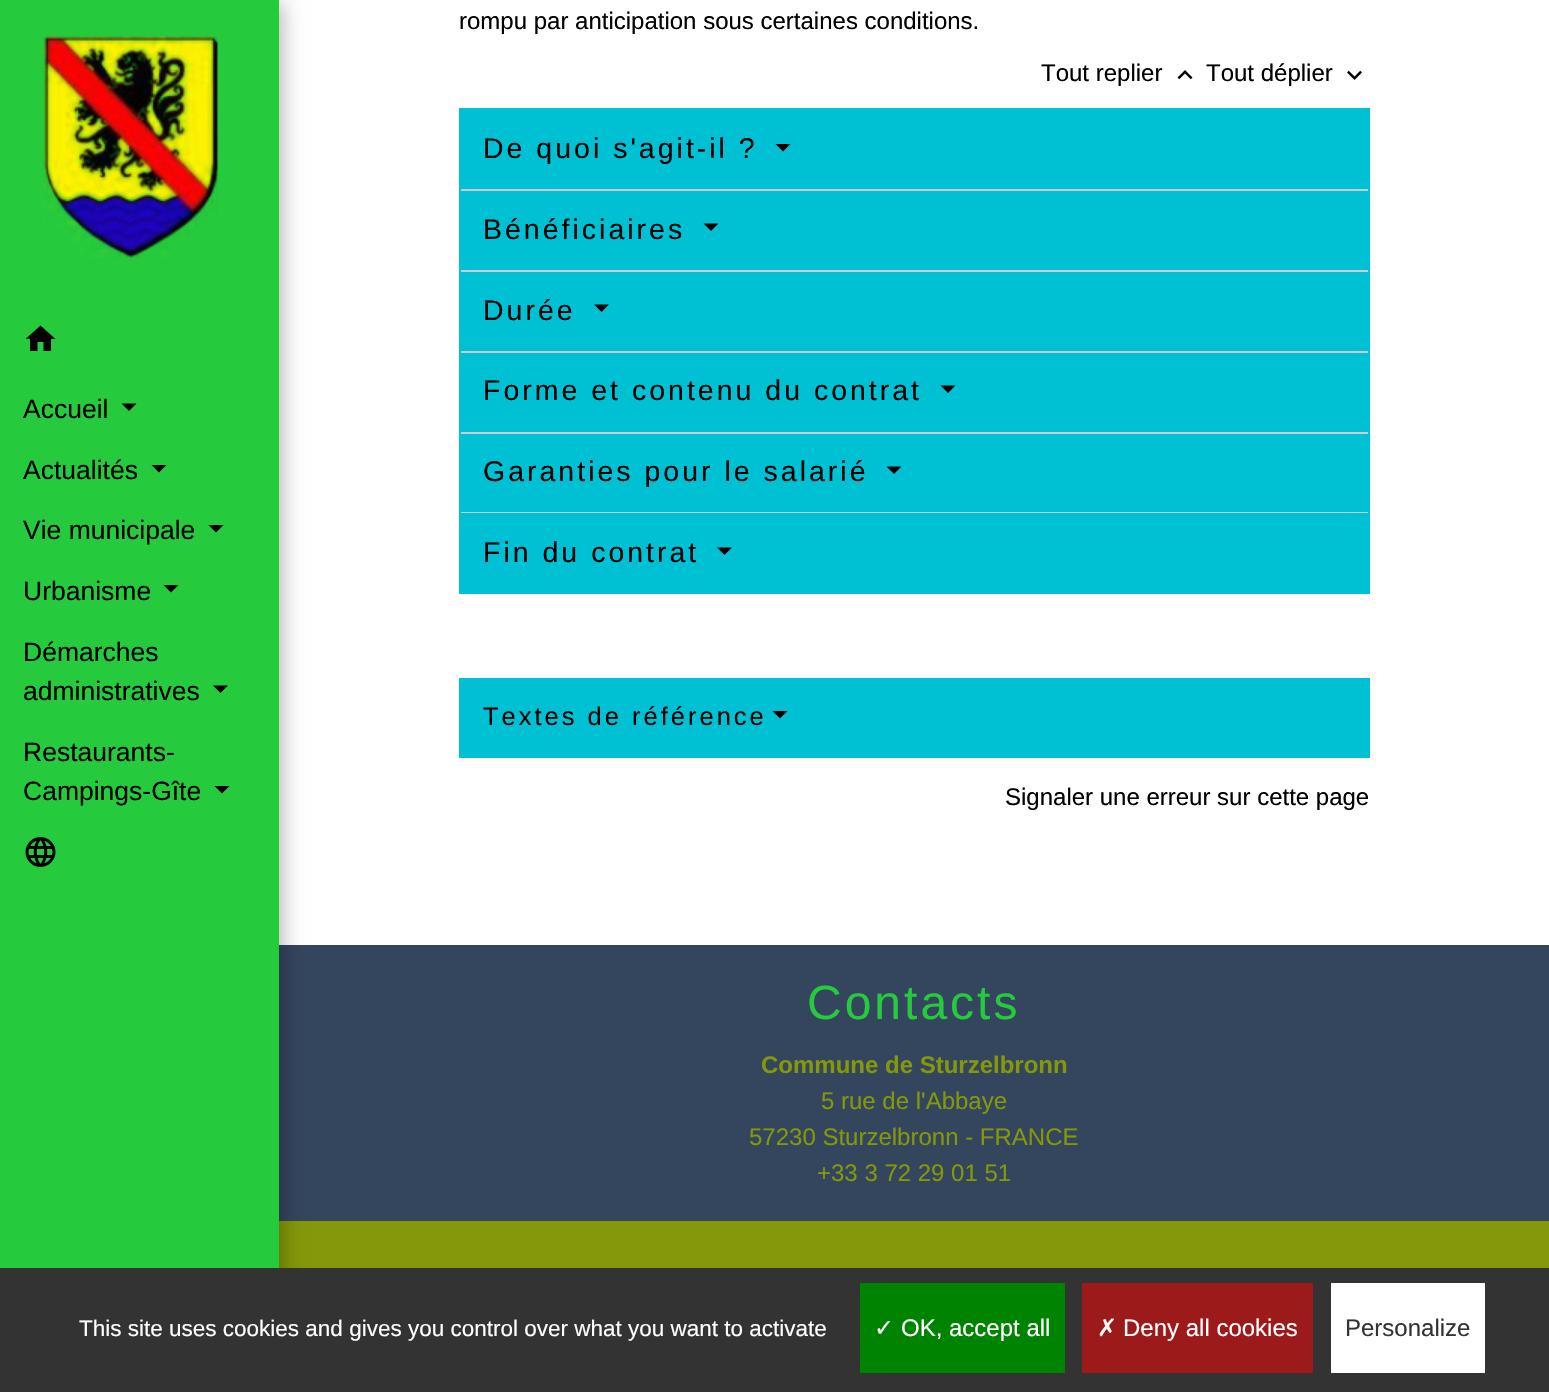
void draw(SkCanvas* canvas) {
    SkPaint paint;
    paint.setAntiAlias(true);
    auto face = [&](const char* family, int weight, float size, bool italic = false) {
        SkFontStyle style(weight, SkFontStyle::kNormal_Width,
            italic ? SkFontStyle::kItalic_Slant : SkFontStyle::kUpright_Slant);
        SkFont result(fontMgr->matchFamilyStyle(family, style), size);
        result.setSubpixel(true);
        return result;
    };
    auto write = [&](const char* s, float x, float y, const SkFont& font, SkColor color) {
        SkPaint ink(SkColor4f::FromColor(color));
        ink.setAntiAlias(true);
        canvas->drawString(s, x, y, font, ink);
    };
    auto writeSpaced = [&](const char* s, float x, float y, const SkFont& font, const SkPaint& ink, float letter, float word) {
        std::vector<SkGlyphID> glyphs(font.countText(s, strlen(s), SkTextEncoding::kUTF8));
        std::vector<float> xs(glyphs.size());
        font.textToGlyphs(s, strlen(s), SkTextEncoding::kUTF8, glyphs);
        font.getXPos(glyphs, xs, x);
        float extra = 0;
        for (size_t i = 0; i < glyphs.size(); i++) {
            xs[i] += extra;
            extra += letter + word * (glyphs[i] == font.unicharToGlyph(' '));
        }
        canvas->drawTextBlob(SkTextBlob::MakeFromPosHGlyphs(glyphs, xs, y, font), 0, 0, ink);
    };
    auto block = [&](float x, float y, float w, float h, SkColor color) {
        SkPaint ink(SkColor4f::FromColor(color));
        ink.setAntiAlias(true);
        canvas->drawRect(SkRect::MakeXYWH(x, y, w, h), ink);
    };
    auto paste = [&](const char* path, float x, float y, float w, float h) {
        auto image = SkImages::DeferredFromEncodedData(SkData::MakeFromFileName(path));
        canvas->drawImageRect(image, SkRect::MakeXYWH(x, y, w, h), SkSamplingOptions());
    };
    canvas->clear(SK_ColorWHITE);
    block(279, 945, 1270, 276, SkColorSetRGB(52, 69, 94));
    block(279, 1221, 1270, 47, SkColorSetRGB(133, 152, 10));
    paint.setColor(SkColorSetARGB(77, 0, 0, 0));
    paint.setMaskFilter(SkMaskFilter::MakeBlur(kNormal_SkBlurStyle, 10));
    canvas->drawRect(SkRect::MakeXYWH(3, 3, 279, 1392), paint);
    paint.setMaskFilter(nullptr);
    block(0, 0, 279, 1268, SkColorSetRGB(37, 203, 60));
    paste("pic1.png", 43, 35, 175, 223);
    paint.setColor(SK_ColorBLACK);
    canvas->drawPath(SkPathBuilder().moveTo(37.5f, 351).lineTo(30, 351).lineTo(30, 339).lineTo(25.5f, 339).lineTo(40.5f, 325.5f).lineTo(55.5f, 339).lineTo(51, 339).lineTo(51, 351).lineTo(43.5f, 351).lineTo(43.5f, 342).lineTo(37.5f, 342).close().detach(), paint);
    auto kFont1 = face("Liberation Sans", 400, 26.5f);
    write("Accueil", 23, 418, kFont1, SK_ColorBLACK);
    canvas->drawPath(SkPathBuilder().moveTo(121.5f, 403.5f).lineTo(136.5f, 403.5f).lineTo(129, 411).close().detach(), paint);
    write("Actualités", 23, 479, kFont1, SK_ColorBLACK);
    canvas->drawPath(SkPathBuilder().moveTo(151.5f, 465).lineTo(166.5f, 465).lineTo(159, 472.5f).close().detach(), paint);
    write("Vie municipale", 23, 539, kFont1, SK_ColorBLACK);
    canvas->drawPath(SkPathBuilder().moveTo(208.5f, 525).lineTo(223.5f, 525).lineTo(216, 532.5f).close().detach(), paint);
    write("Urbanisme", 23, 600, kFont1, SK_ColorBLACK);
    canvas->drawPath(SkPathBuilder().moveTo(163.5f, 585).lineTo(178.5f, 585).lineTo(171, 592.5f).close().detach(), paint);
    write("Démarches", 23, 661, kFont1, SK_ColorBLACK);
    write("administratives", 23, 700, kFont1, SK_ColorBLACK);
    canvas->drawPath(SkPathBuilder().moveTo(213, 685.5f).lineTo(228, 685.5f).lineTo(220.5f, 693).close().detach(), paint);
    write("Restaurants-", 23, 761, kFont1, SK_ColorBLACK);
    write("Campings-Gîte", 23, 800, kFont1, SK_ColorBLACK);
    canvas->drawPath(SkPathBuilder().moveTo(214.5f, 786).lineTo(229.5f, 786).lineTo(222, 793.5f).close().detach(), paint);
    paste("pic2.png", 25, 837, 31, 30);
    auto kFont2 = face("Liberation Sans", 400, 24);
    write("rompu par anticipation sous certaines conditions.", 459, 29, kFont2, SK_ColorBLACK);
    write("Tout replier", 1041, 81, kFont2, SK_ColorBLACK);
    paste("pic3.png", 1177, 70, 16, 10);
    write("Tout déplier", 1206, 81, kFont2, SK_ColorBLACK);
    paste("pic4.png", 1347, 70, 15, 10);
    paint.setStyle(SkPaint::kStroke_Style);
    paint.setStrokeWidth(2);
    paint.setColor(SkColorSetRGB(0, 193, 211));
    canvas->drawRect(SkRect::MakeXYWH(460, 109, 909, 484), paint);
    block(461, 110, 907, 79, SkColorSetRGB(0, 193, 211));
    auto kFont3 = face("Liberation Sans", 400, 28.5f);
    paint.setStyle(SkPaint::kFill_Style);
    paint.setColor(SK_ColorBLACK);
    writeSpaced("De quoi s'agit-il ?", 483, 158, kFont3, paint, 3, 0);
    canvas->drawPath(SkPathBuilder().moveTo(775.5f, 144).lineTo(790.5f, 144).lineTo(783, 151.5f).close().detach(), paint);
    block(461, 189, 907, 2, SkColorSetRGB(204, 204, 204));
    block(461, 191, 907, 79, SkColorSetRGB(0, 193, 211));
    writeSpaced("Bénéficiaires", 483, 239, kFont3, paint, 3, 0);
    canvas->drawPath(SkPathBuilder().moveTo(703.5f, 223.5f).lineTo(718.5f, 223.5f).lineTo(711, 231).close().detach(), paint);
    block(461, 270, 907, 2, SkColorSetRGB(204, 204, 204));
    block(461, 272, 907, 79, SkColorSetRGB(0, 193, 211));
    writeSpaced("Durée", 483, 320, kFont3, paint, 3, 0);
    canvas->drawPath(SkPathBuilder().moveTo(594, 304.5f).lineTo(609, 304.5f).lineTo(601.5f, 312).close().detach(), paint);
    block(461, 351, 907, 2, SkColorSetRGB(204, 204, 204));
    block(461, 353, 907, 79, SkColorSetRGB(0, 193, 211));
    writeSpaced("Forme et contenu du contrat", 483, 400, kFont3, paint, 3, 0);
    canvas->drawPath(SkPathBuilder().moveTo(940.5f, 385.5f).lineTo(955.5f, 385.5f).lineTo(948, 393).close().detach(), paint);
    block(461, 432, 907, 2, SkColorSetRGB(204, 204, 204));
    block(461, 434, 907, 78, SkColorSetRGB(0, 193, 211));
    writeSpaced("Garanties pour le salarié", 483, 481, kFont3, paint, 3, 0);
    canvas->drawPath(SkPathBuilder().moveTo(886.5f, 466.5f).lineTo(901.5f, 466.5f).lineTo(894, 474).close().detach(), paint);
    block(461, 512, 907, 1, SkColorSetRGB(204, 204, 204));
    block(461, 513, 907, 79, SkColorSetRGB(0, 193, 211));
    writeSpaced("Fin du contrat", 483, 562, kFont3, paint, 3, 0);
    canvas->drawPath(SkPathBuilder().moveTo(717, 547.5f).lineTo(732, 547.5f).lineTo(724.5f, 555).close().detach(), paint);
    paint.setStyle(SkPaint::kStroke_Style);
    paint.setColor(SkColorSetRGB(0, 193, 211));
    canvas->drawRect(SkRect::MakeXYWH(460, 679, 909, 78), paint);
    block(461, 680, 907, 76, SkColorSetRGB(0, 193, 211));
    auto kFont4 = face("Liberation Sans", 400, 25.5f);
    paint.setStyle(SkPaint::kFill_Style);
    paint.setColor(SK_ColorBLACK);
    writeSpaced("Textes de référence", 483, 725, kFont4, paint, 3, 0);
    canvas->drawPath(SkPathBuilder().moveTo(772.5f, 711).lineTo(787.5f, 711).lineTo(780, 718.5f).close().detach(), paint);
    write("Signaler une erreur sur cette page", 1005, 805, kFont2, SK_ColorBLACK);
    auto kFont5 = face("Liberation Sans", 400, 48);
    paint.setColor(SkColorSetRGB(37, 203, 60));
    writeSpaced("Contacts", 807, 1019, kFont5, paint, 3, 0);
    auto kFont6 = face("Liberation Sans", 700, 24);
    write("Commune de Sturzelbronn", 761, 1073, kFont6, SkColorSetRGB(133, 152, 10));
    write("5 rue de l'Abbaye", 821, 1109, kFont2, SkColorSetRGB(133, 152, 10));
    write("57230 Sturzelbronn - FRANCE", 749, 1145, kFont2, SkColorSetRGB(133, 152, 10));
    write("+33 3 72 29 01 51", 817, 1181, kFont2, SkColorSetRGB(133, 152, 10));
    block(0, 1268, 1549, 124, SkColorSetRGB(51, 51, 51));
    auto kFont7 = face("Liberation Sans", 400, 22.5f);
    write("This site uses cookies and gives you control over what you want to activate", 79, 1336, kFont7, SK_ColorWHITE);
    block(860, 1283, 205, 90, SkColorSetRGB(0, 131, 0));
    auto kFont8 = face("DejaVu Sans", 400, 24);
    write("✓", 874, 1336, kFont8, SK_ColorWHITE);
    write("OK, accept all", 901, 1336, kFont2, SK_ColorWHITE);
    block(1082, 1283, 231, 90, SkColorSetRGB(156, 26, 26));
    write("✗", 1097, 1336, kFont8, SK_ColorWHITE);
    write("Deny all cookies", 1123, 1336, kFont2, SK_ColorWHITE);
    block(1331, 1283, 154, 90, SK_ColorWHITE);
    write("Personalize", 1345, 1336, kFont2, SkColorSetRGB(51, 51, 51));
}
